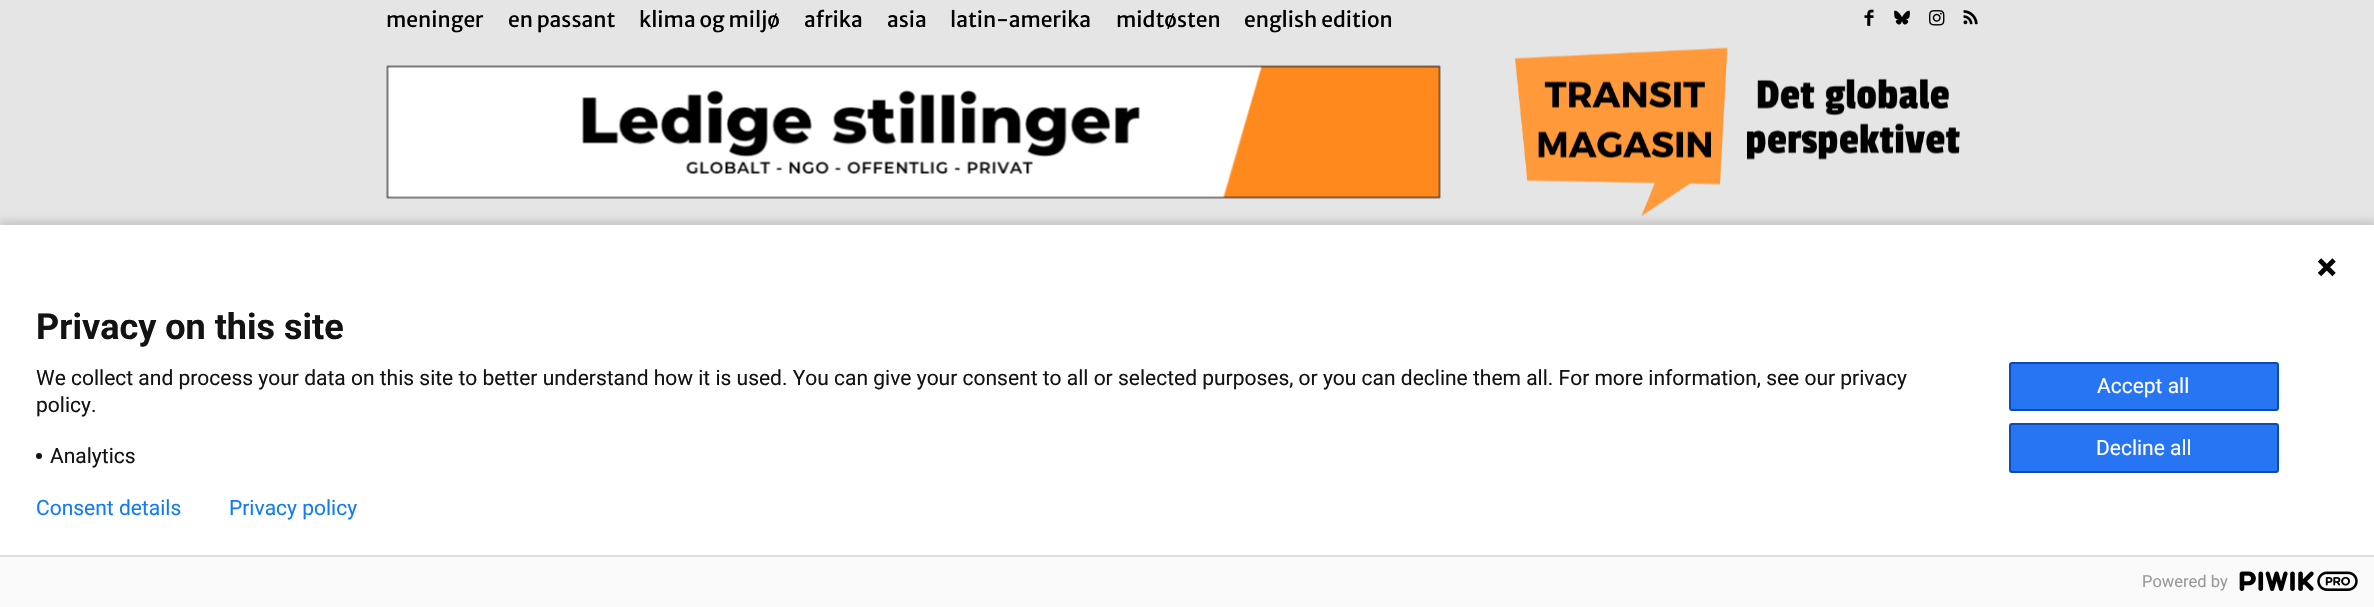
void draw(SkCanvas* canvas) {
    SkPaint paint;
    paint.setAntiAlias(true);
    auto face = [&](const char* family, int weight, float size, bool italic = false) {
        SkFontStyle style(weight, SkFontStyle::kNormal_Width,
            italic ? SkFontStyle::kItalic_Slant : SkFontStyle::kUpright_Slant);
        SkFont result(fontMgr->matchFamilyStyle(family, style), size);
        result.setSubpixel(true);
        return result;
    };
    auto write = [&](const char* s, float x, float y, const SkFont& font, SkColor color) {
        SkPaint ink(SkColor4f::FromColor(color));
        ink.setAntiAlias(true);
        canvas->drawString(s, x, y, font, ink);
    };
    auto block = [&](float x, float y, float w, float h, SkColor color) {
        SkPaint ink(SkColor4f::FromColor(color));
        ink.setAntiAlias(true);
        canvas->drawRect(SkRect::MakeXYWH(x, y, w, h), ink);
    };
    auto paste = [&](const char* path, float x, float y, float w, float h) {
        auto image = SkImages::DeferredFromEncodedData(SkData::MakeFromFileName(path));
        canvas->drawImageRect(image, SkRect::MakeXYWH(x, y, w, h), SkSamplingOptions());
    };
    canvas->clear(SkColorSetRGB(229, 229, 229));
    auto kFont1 = face("Merriweather Sans", 400, 21);
    write("meninger", 386, 27, kFont1, SK_ColorBLACK);
    write("en passant", 508, 27, kFont1, SK_ColorBLACK);
    write("klima og miljø", 639, 27, kFont1, SK_ColorBLACK);
    write("afrika", 804, 27, kFont1, SK_ColorBLACK);
    write("asia", 887, 27, kFont1, SK_ColorBLACK);
    write("latin-amerika", 950, 27, kFont1, SK_ColorBLACK);
    write("midtøsten", 1116, 27, kFont1, SK_ColorBLACK);
    write("english edition", 1244, 27, kFont1, SK_ColorBLACK);
    paste("pic1.png", 1864, 9, 10, 17);
    paste("pic2.png", 1894, 10, 16, 15);
    paste("pic3.png", 1929, 10, 16, 16);
    paste("pic4.png", 1963, 10, 15, 15);
    paste("pic5.png", 386, 65, 1055, 134);
    paste("pic6.png", 1515, 47, 445, 170);
    paint.setColor(SkColorSetARGB(36, 0, 0, 0));
    paint.setMaskFilter(SkMaskFilter::MakeBlur(kNormal_SkBlurStyle, 4));
    canvas->drawRect(SkRect::MakeXYWH(-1, 221, 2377, 385), paint);
    paint.setMaskFilter(nullptr);
    block(0, 225, 2374, 330, SK_ColorWHITE);
    paste("pic7.png", 2317, 258, 19, 19);
    auto kFont2 = face("Roboto", 700, 36);
    write("Privacy on this site", 36, 339, kFont2, SkColorSetRGB(19, 19, 19));
    auto kFont3 = face("Roboto", 400, 21);
    write("We collect and process your data on this site to better understand how it is used. You can give your consent to all or selected purposes, or you can decline them all. For more information, see our privacy", 36, 385, kFont3, SkColorSetRGB(19, 19, 19));
    write("policy.", 36, 412, kFont3, SkColorSetRGB(19, 19, 19));
    paint.setColor(SkColorSetRGB(19, 19, 19));
    canvas->drawCircle(39, 456, 3, paint);
    write("Analytics", 50, 463, kFont3, SkColorSetRGB(19, 19, 19));
    paint.setColor(SkColorSetRGB(39, 117, 242));
    canvas->drawRoundRect(SkRect::MakeXYWH(2010, 363, 268, 47), 2, 2, paint);
    paint.setStyle(SkPaint::kStroke_Style);
    paint.setStrokeWidth(2);
    paint.setColor(SkColorSetRGB(11, 75, 179));
    canvas->drawRoundRect(SkRect::MakeXYWH(2010, 363, 268, 47), 2, 2, paint);
    write("Accept all", 2097, 393, kFont3, SK_ColorWHITE);
    paint.setStyle(SkPaint::kFill_Style);
    paint.setColor(SkColorSetRGB(39, 117, 242));
    canvas->drawRoundRect(SkRect::MakeXYWH(2010, 424, 268, 48), 2, 2, paint);
    paint.setStyle(SkPaint::kStroke_Style);
    paint.setColor(SkColorSetRGB(11, 75, 179));
    canvas->drawRoundRect(SkRect::MakeXYWH(2010, 424, 268, 48), 2, 2, paint);
    write("Decline all", 2096, 455, kFont3, SK_ColorWHITE);
    write("Consent details", 36, 515, kFont3, SkColorSetRGB(16, 126, 241));
    write("Privacy policy", 229, 515, kFont3, SkColorSetRGB(16, 126, 241));
    block(0, 557, 2374, 50, SkColorSetRGB(250, 250, 250));
    block(0, 555, 2374, 2, SkColorSetRGB(221, 221, 221));
    auto kFont4 = face("Roboto", 400, 16.5f);
    write("Powered by", 2142, 587, kFont4, SkColorSetRGB(153, 153, 153));
    paste("pic8.png", 2239, 571, 119, 20);
}
